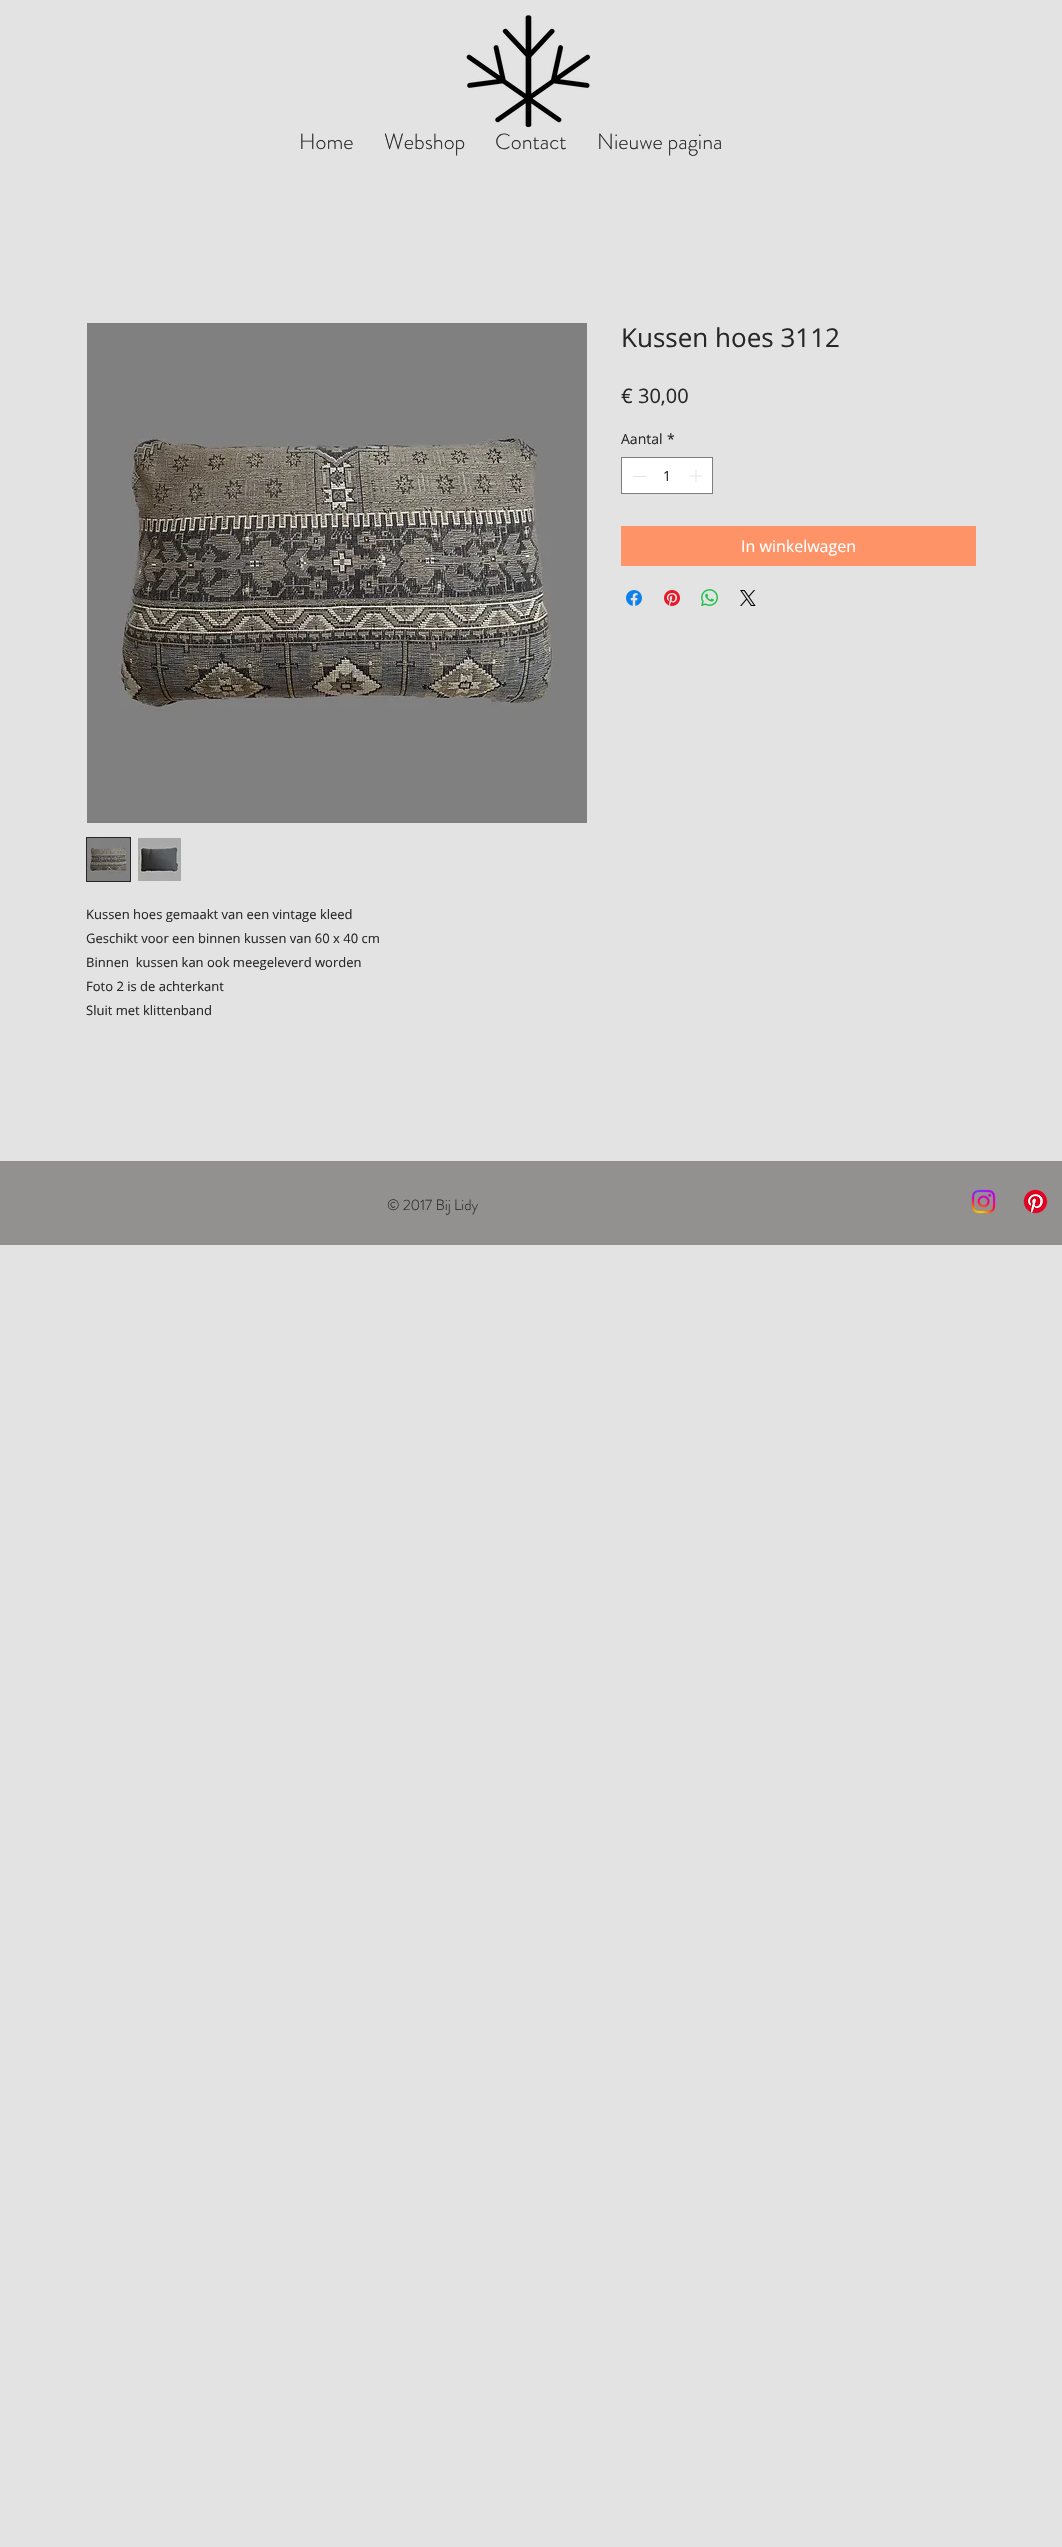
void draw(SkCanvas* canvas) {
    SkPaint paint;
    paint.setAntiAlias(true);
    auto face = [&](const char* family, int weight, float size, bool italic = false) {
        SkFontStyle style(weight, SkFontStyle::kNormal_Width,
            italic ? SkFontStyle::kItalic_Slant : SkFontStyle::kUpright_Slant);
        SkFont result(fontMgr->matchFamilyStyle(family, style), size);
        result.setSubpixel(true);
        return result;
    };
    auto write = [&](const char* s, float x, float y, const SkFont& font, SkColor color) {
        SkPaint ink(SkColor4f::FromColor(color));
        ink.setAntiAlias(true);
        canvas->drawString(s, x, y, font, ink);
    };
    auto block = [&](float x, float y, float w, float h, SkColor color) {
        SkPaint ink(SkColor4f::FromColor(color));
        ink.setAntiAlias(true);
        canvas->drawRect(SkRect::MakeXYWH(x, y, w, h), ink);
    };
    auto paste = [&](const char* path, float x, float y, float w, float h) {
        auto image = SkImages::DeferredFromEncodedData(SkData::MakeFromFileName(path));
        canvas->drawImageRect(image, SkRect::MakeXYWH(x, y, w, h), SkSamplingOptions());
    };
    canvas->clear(SkColorSetRGB(227, 227, 227));
    paste("pic1.png", 466, 15, 125, 113);
    auto kFont1 = face("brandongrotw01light", 300, 22);
    write("Home", 299, 149, kFont1, SkColorSetRGB(39, 39, 39));
    write("Webshop", 384, 149, kFont1, SkColorSetRGB(39, 39, 39));
    write("Contact", 495, 149, kFont1, SkColorSetRGB(39, 39, 39));
    write("Nieuwe pagina", 597, 149, kFont1, SkColorSetRGB(39, 39, 39));
    auto kFont2 = face("Open Sans", 400, 26);
    write("Kussen hoes 3112", 621, 347, kFont2, SkColorSetRGB(39, 39, 39));
    auto kFont3 = face("Open Sans", 400, 20);
    write("€ 30,00", 621, 403, kFont3, SkColorSetRGB(39, 39, 39));
    auto kFont4 = face("Open Sans", 400, 14);
    write("Aantal", 621, 444, kFont4, SkColorSetRGB(39, 39, 39));
    write("*", 667, 444, kFont4, SkColorSetRGB(39, 39, 39));
    paint.setColor(SK_ColorWHITE);
    canvas->drawRect(SkRect::MakeXYWH(621.5f, 457.5f, 91, 36), paint);
    paint.setStyle(SkPaint::kStroke_Style);
    paint.setStrokeWidth(1);
    paint.setColor(SkColorSetRGB(125, 125, 125));
    canvas->drawRect(SkRect::MakeXYWH(621.5f, 457.5f, 91, 36), paint);
    block(633, 476, 13, 1, SkColorSetRGB(227, 227, 227));
    write("1", 663, 481, kFont4, SkColorSetRGB(39, 39, 39));
    paste("pic2.png", 689, 469, 14, 14);
    block(621, 526, 355, 40, SkColorSetRGB(255, 147, 104));
    auto kFont5 = face("Open Sans", 400, 16);
    write("In winkelwagen", 741, 552, kFont5, SK_ColorWHITE);
    paste("pic3.png", 626, 590, 16, 16);
    paste("pic4.png", 664, 590, 16, 16);
    paste("pic5.png", 701, 589, 17, 17);
    paste("pic6.png", 740, 590, 16, 16);
    paste("pic7.png", 87, 323, 500, 500);
    paint.setColor(SkColorSetRGB(39, 39, 39));
    canvas->drawRect(SkRect::MakeXYWH(86.5f, 837.5f, 44, 44), paint);
    paste("pic8.png", 87, 838, 43, 43);
    paste("pic9.png", 138, 838, 43, 43);
    auto kFont6 = face("Open Sans", 400, 13);
    write("Kussen hoes gemaakt van een vintage kleed", 86, 919, kFont6, SkColorSetRGB(39, 39, 39));
    write("Geschikt voor een binnen kussen van 60 x 40 cm", 86, 943, kFont6, SkColorSetRGB(39, 39, 39));
    write("Binnen  kussen kan ook meegeleverd worden", 86, 967, kFont6, SkColorSetRGB(39, 39, 39));
    write("Foto 2 is de achterkant", 86, 991, kFont6, SkColorSetRGB(39, 39, 39));
    write("Sluit met klittenband", 86, 1015, kFont6, SkColorSetRGB(39, 39, 39));
    block(0, 1161, 1062, 84, SkColorSetRGB(147, 144, 144));
    auto kFont7 = face("brandongrotw01light", 300, 15);
    write("© 2017 Bij Lidy", 387, 1210, kFont7, SkColorSetRGB(39, 39, 39));
    paste("pic10.png", 971, 1189, 25, 25);
    paste("pic11.png", 1023, 1189, 25, 25);
}
